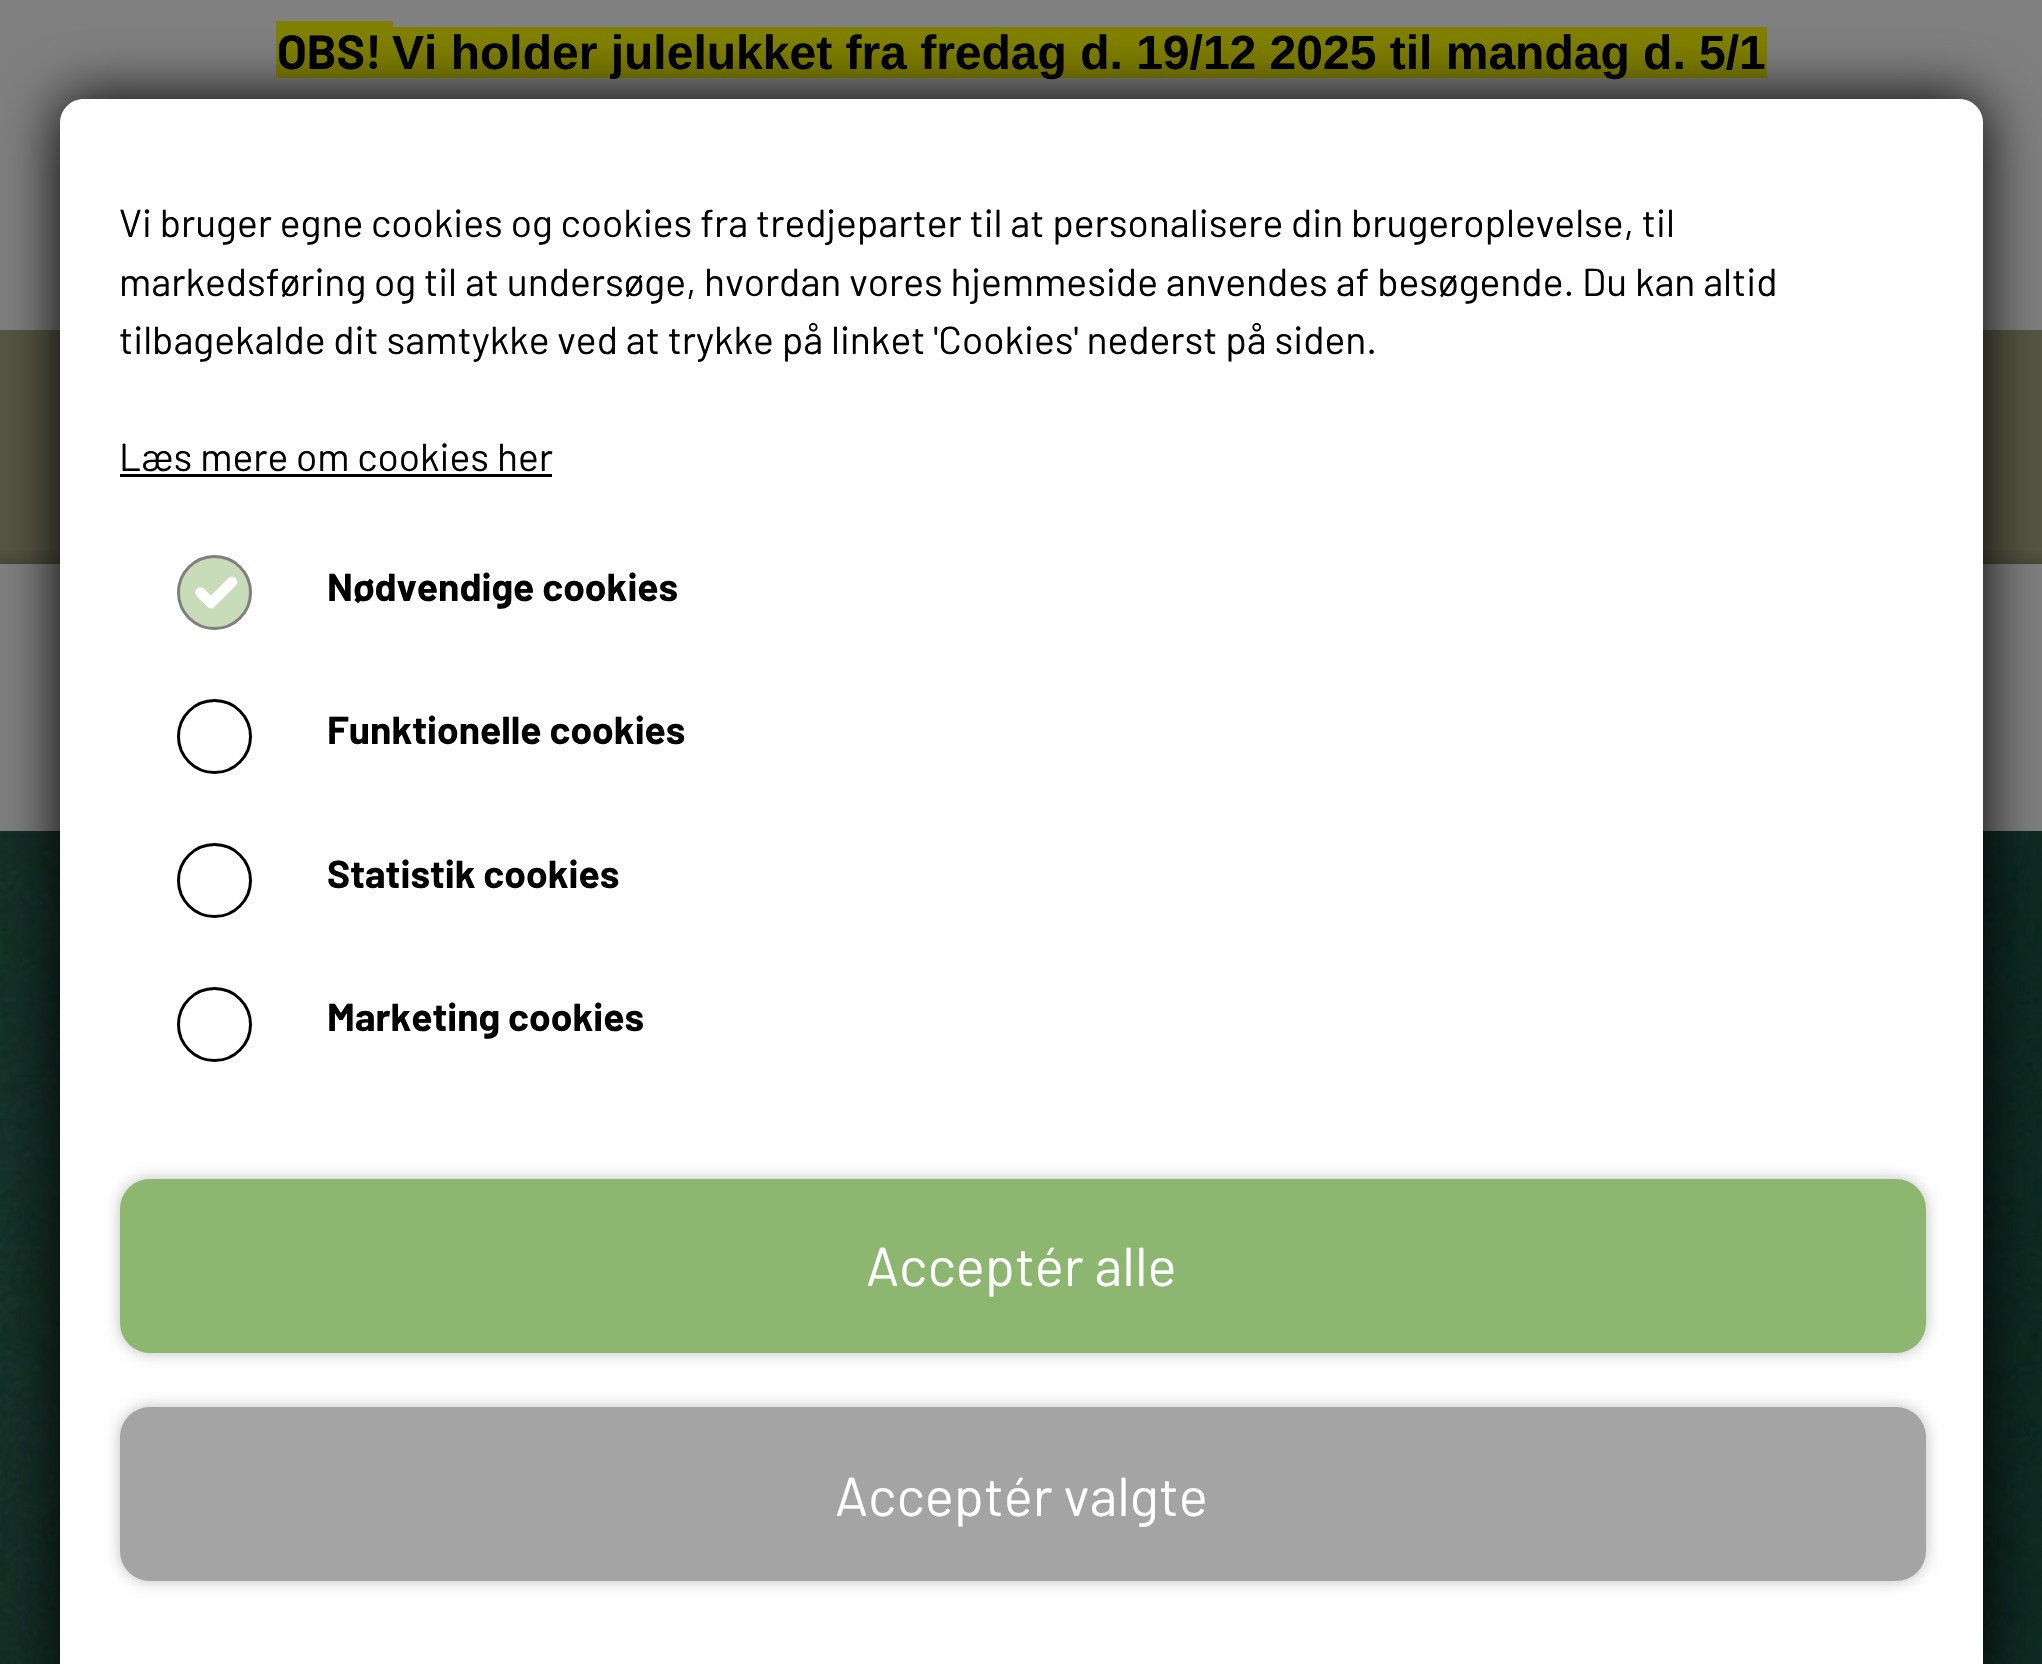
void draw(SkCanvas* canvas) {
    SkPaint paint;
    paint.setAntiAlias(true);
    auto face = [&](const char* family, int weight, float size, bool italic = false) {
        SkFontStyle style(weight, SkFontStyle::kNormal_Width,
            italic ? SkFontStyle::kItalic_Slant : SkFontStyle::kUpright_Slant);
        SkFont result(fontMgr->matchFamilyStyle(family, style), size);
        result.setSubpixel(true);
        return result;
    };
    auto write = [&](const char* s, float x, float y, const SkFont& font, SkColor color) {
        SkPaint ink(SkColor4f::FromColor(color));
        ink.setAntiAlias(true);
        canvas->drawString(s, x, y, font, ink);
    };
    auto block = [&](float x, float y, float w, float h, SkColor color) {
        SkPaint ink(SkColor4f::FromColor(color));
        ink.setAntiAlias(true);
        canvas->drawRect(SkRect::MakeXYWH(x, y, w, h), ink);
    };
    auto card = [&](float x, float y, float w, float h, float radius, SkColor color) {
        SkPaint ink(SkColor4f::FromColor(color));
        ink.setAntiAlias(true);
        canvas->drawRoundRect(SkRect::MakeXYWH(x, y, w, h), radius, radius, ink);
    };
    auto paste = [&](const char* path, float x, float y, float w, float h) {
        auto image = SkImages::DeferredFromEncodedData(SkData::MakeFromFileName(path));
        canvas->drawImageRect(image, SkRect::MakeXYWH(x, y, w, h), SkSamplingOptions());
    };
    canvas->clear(SkColorSetRGB(128, 128, 128));
    block(276, 21, 117, 57, SkColorSetRGB(128, 128, 0));
    auto kFont1 = face("Barlow", 700, 48);
    write("OBS!", 277, 69, kFont1, SK_ColorBLACK);
    block(393, 27, 1374, 51, SkColorSetRGB(128, 128, 0));
    auto kFont2 = face("Liberation Sans", 700, 48);
    write("Vi holder julelukket fra fredag d. 19/12 2025 til mandag d. 5/1", 392, 69, kFont2, SK_ColorBLACK);
    block(0, 330, 2042, 219, SkColorSetRGB(87, 85, 67));
    {
        const SkColor colors[] = {SkColorSetRGB(74, 73, 57), SkColorSetRGB(87, 85, 67)};
        const float stops[] = {0, 1};
        const SkPoint ends[] = {{1022, 564}, {1022, 549}};
        paint.setShader(SkGradientShader::MakeLinear(ends, colors, stops, 2, SkTileMode::kClamp));
        paint.setAlpha(255);
    }
    canvas->drawRect(SkRect::MakeXYWH(0, 549, 2042, 15), paint);
    paste("pic1.png", 0, 831, 2042, 833);
    paint.setShader(nullptr);
    paint.setColor(SK_ColorBLACK);
    paint.setMaskFilter(SkMaskFilter::MakeBlur(kNormal_SkBlurStyle, 30));
    canvas->drawRoundRect(SkRect::MakeXYWH(60, 99, 1923, 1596), 24, 24, paint);
    paint.setMaskFilter(nullptr);
    paint.setColor(SK_ColorWHITE);
    canvas->drawPath(SkPathBuilder().moveTo(84, 99).lineTo(1959, 99).cubicTo(1972.5f, 99, 1983, 109.5f, 1983, 123).lineTo(1983, 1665).lineTo(60, 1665).lineTo(60, 123).cubicTo(60, 109.5f, 70.5f, 99, 84, 99).close().detach(), paint);
    auto kFont3 = face("Barlow", 400, 39);
    write("Vi bruger egne cookies og cookies fra tredjeparter til at personalisere din brugeroplevelse, til", 119, 237, kFont3, SK_ColorBLACK);
    write("markedsføring og til at undersøge, hvordan vores hjemmeside anvendes af besøgende. Du kan altid", 119, 296, kFont3, SK_ColorBLACK);
    write("tilbagekalde dit samtykke ved at trykke på linket 'Cookies' nederst på siden.", 119, 354, kFont3, SK_ColorBLACK);
    write("Læs mere om cookies her", 119, 471, kFont3, SK_ColorBLACK);
    block(120, 474, 432, 3, SK_ColorBLACK);
    paint.setColor(SkColorSetRGB(200, 220, 186));
    canvas->drawCircle(214.5f, 592.5f, 37.5f, paint);
    paint.setStyle(SkPaint::kStroke_Style);
    paint.setStrokeWidth(10.3f);
    paint.setStrokeCap(SkPaint::kRound_Cap);
    paint.setStrokeJoin(SkPaint::kRound_Join);
    paint.setColor(SK_ColorWHITE);
    canvas->drawPath(SkPathBuilder().moveTo(200.5f, 592.5f).lineTo(211, 603).lineTo(232, 582).detach(), paint);
    paint.setStrokeWidth(3);
    paint.setStrokeCap(SkPaint::kButt_Cap);
    paint.setStrokeJoin(SkPaint::kMiter_Join);
    paint.setColor(SkColorSetRGB(128, 128, 128));
    canvas->drawCircle(214.5f, 592.5f, 36, paint);
    auto kFont4 = face("Barlow", 700, 39);
    write("Nødvendige cookies", 327, 601, kFont4, SK_ColorBLACK);
    paint.setColor(SK_ColorBLACK);
    canvas->drawCircle(214.5f, 736.5f, 36, paint);
    write("Funktionelle cookies", 327, 744, kFont4, SK_ColorBLACK);
    canvas->drawCircle(214.5f, 880.5f, 36, paint);
    write("Statistik cookies", 327, 888, kFont4, SK_ColorBLACK);
    canvas->drawCircle(214.5f, 1024.5f, 36, paint);
    write("Marketing cookies", 327, 1031, kFont4, SK_ColorBLACK);
    paint.setStyle(SkPaint::kFill_Style);
    paint.setColor(SkColorSetARGB(64, 0, 0, 0));
    paint.setMaskFilter(SkMaskFilter::MakeBlur(kNormal_SkBlurStyle, 7.5f));
    canvas->drawRoundRect(SkRect::MakeXYWH(120, 1179, 1806, 174), 30, 30, paint);
    paint.setMaskFilter(nullptr);
    card(120, 1179, 1806, 174, 30, SkColorSetRGB(141, 182, 113));
    auto kFont5 = face("Barlow", 400, 54.5f);
    write("Acceptér alle", 866, 1286, kFont5, SK_ColorWHITE);
    paint.setMaskFilter(SkMaskFilter::MakeBlur(kNormal_SkBlurStyle, 7.5f));
    canvas->drawRoundRect(SkRect::MakeXYWH(120, 1407, 1806, 174), 30, 30, paint);
    paint.setMaskFilter(nullptr);
    card(120, 1407, 1806, 174, 30, SkColorSetRGB(164, 164, 164));
    write("Acceptér valgte", 835, 1516, kFont5, SK_ColorWHITE);
}
